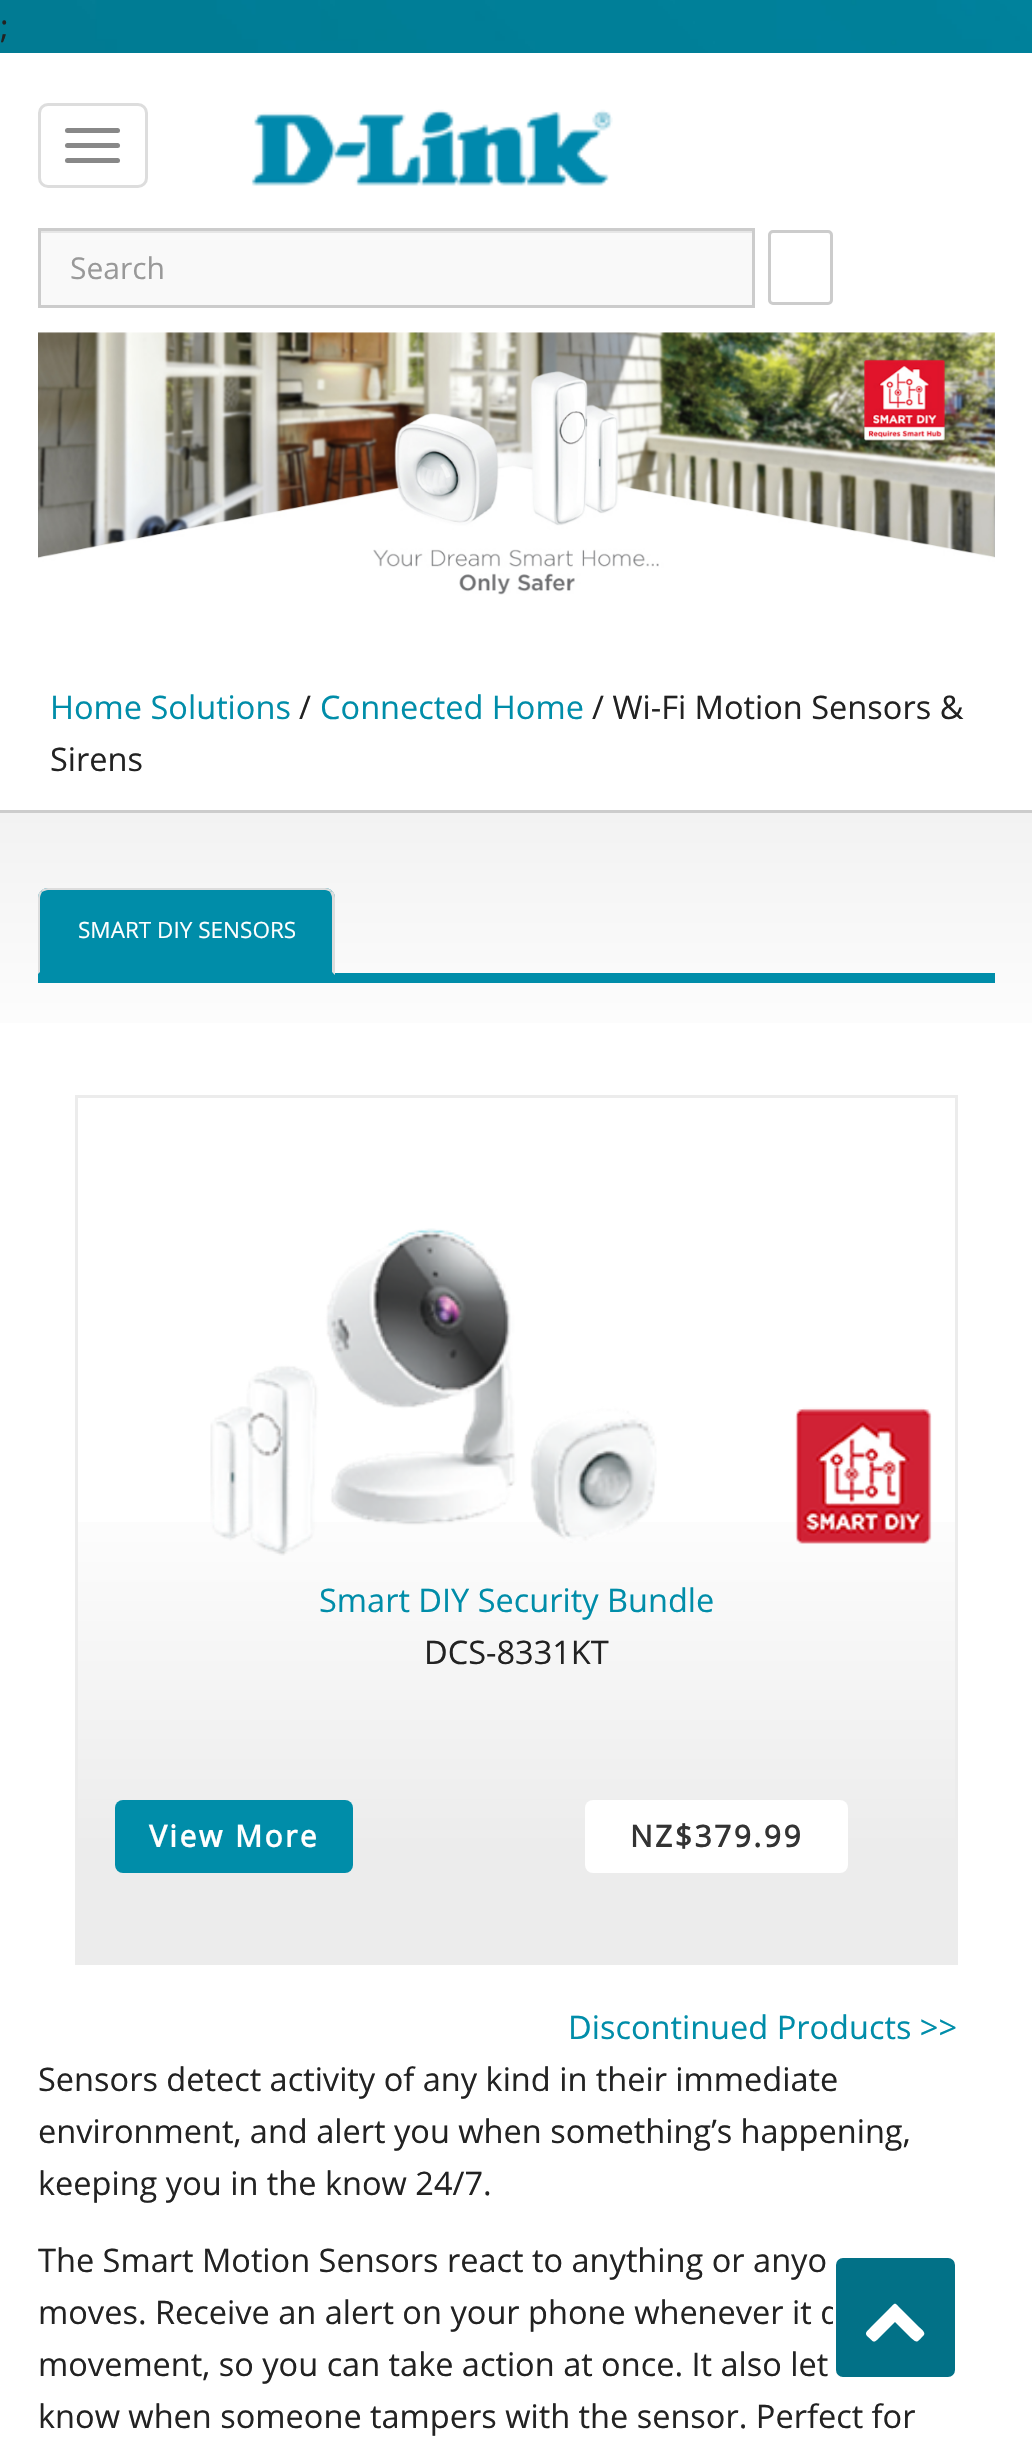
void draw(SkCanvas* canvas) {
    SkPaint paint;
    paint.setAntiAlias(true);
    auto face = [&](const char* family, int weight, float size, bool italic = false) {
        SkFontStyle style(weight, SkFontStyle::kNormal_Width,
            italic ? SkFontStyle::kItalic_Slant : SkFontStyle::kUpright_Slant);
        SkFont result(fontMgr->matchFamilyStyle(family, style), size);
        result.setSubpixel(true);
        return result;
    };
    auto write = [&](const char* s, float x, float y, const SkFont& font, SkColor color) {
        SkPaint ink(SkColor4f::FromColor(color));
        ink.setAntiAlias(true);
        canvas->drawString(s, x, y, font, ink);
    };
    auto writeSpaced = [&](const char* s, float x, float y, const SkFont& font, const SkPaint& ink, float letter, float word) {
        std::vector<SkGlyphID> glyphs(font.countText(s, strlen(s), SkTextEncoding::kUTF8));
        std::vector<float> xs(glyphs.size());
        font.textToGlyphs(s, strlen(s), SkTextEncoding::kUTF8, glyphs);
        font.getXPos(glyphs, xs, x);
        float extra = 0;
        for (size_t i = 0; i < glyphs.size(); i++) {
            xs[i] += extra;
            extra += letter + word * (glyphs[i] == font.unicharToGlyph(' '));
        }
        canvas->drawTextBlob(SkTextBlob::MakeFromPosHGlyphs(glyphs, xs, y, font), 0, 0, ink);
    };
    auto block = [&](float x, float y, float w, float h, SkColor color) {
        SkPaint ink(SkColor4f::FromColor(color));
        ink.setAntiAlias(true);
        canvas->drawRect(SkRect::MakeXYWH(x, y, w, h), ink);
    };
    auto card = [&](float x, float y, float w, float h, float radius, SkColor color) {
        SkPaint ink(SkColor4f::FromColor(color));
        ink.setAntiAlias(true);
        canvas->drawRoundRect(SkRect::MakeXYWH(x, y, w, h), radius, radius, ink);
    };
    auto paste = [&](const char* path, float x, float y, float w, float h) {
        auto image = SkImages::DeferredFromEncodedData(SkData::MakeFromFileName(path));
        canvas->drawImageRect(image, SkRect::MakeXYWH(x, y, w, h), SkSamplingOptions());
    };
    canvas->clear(SK_ColorWHITE);
    paste("pic1.png", 0, 0, 1032, 53);
    auto kFont1 = face("Open Sans", 400, 32.5f);
    write(";", 0, 38, kFont1, SkColorSetRGB(34, 34, 34));
    paint.setStyle(SkPaint::kStroke_Style);
    paint.setStrokeWidth(3);
    paint.setColor(SkColorSetRGB(221, 221, 221));
    canvas->drawRoundRect(SkRect::MakeXYWH(39.5f, 104.5f, 107, 82), 8.5f, 8.5f, paint);
    card(65, 128, 55, 5, 2.5f, SkColorSetRGB(136, 136, 136));
    card(65, 143, 55, 5, 2.5f, SkColorSetRGB(136, 136, 136));
    card(65, 158, 55, 5, 2.5f, SkColorSetRGB(136, 136, 136));
    paste("pic2.png", 251, 109, 362, 77);
    block(41, 233, 711, 72, SkColorSetRGB(249, 249, 249));
    block(40, 231, 713, 2, SkColorSetRGB(230, 230, 230));
    paint.setColor(SkColorSetRGB(204, 204, 204));
    canvas->drawRect(SkRect::MakeXYWH(39.5f, 229.5f, 714, 77), paint);
    auto kFont2 = face("Open Sans", 400, 30);
    write("Search", 70, 279, kFont2, SkColorSetRGB(153, 153, 153));
    canvas->drawRoundRect(SkRect::MakeXYWH(769.5f, 231.5f, 62, 72), 3.5f, 3.5f, paint);
    paste("pic3.png", 38, 332, 957, 263);
    write("Home Solutions", 50, 719, kFont1, SkColorSetRGB(0, 141, 169));
    write("/", 299, 719, kFont1, SkColorSetRGB(34, 34, 34));
    write("Connected Home", 320, 719, kFont1, SkColorSetRGB(0, 141, 169));
    write("/ Wi-Fi Motion Sensors &", 592, 719, kFont1, SkColorSetRGB(34, 34, 34));
    write("Sirens", 50, 771, kFont1, SkColorSetRGB(34, 34, 34));
    paint.setStyle(SkPaint::kFill_Style);
    {
        const SkColor colors[] = {SkColorSetRGB(242, 242, 242), SK_ColorWHITE};
        const float stops[] = {0, 0.12f};
        const SkPoint ends[] = {{516, 813}, {516, 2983}};
        paint.setShader(SkGradientShader::MakeLinear(ends, colors, stops, 2, SkTileMode::kClamp));
        paint.setAlpha(255);
    }
    canvas->drawRect(SkRect::MakeXYWH(0, 813, 1032, 210), paint);
    block(0, 810, 1032, 3, SkColorSetRGB(204, 204, 204));
    block(38, 973, 957, 10, SkColorSetRGB(0, 141, 169));
    paint.setShader(nullptr);
    paint.setColor(SkColorSetRGB(0, 141, 169));
    canvas->drawPath(SkPathBuilder().moveTo(48, 888).lineTo(325, 888).cubicTo(330.5f, 888, 335, 892.5f, 335, 898).lineTo(335, 975).lineTo(38, 975).lineTo(38, 898).cubicTo(38, 892.5f, 42.5f, 888, 48, 888).close().detach(), paint);
    paint.setColor(SkColorSetRGB(221, 221, 221));
    canvas->drawPath(SkPathBuilder().moveTo(48, 888).cubicTo(45, 888, 42, 889, 41, 891).lineTo(42, 892).cubicTo(44, 891, 46, 890, 48, 890).lineTo(325, 890).cubicTo(327, 890, 329, 891, 330, 892).lineTo(332, 891).cubicTo(330, 889, 328, 888, 325, 888).close().detach(), paint);
    canvas->drawPath(SkPathBuilder().moveTo(332, 891).cubicTo(334, 892, 335, 895, 335, 898).lineTo(335, 975).lineTo(332, 972).lineTo(332, 898).cubicTo(332, 896, 331, 894, 330, 892).close().detach(), paint);
    canvas->drawPath(SkPathBuilder().moveTo(41, 891).cubicTo(39, 892, 38, 895, 38, 898).lineTo(38, 974).lineTo(40, 972).lineTo(40, 898).cubicTo(40, 896, 41, 894, 42, 892).close().detach(), paint);
    auto kFont3 = face("Open Sans", 400, 22.5f);
    write("SMART DIY SENSORS", 78, 938, kFont3, SK_ColorWHITE);
    {
        const SkColor colors[] = {SK_ColorWHITE, SkColorSetRGB(236, 236, 236)};
        const float stops[] = {0, 1};
        const SkPoint ends[] = {{78, 1473}, {78, 1848}};
        paint.setShader(SkGradientShader::MakeLinear(ends, colors, stops, 2, SkTileMode::kClamp));
        paint.setAlpha(255);
    }
    canvas->drawRect(SkRect::MakeXYWH(78, 1522, 877, 440), paint);
    paint.setStyle(SkPaint::kStroke_Style);
    paint.setShader(nullptr);
    paint.setColor(SkColorSetRGB(236, 236, 236));
    canvas->drawRect(SkRect::MakeXYWH(76.5f, 1096.5f, 880, 867), paint);
    paste("pic4.png", 795, 1407, 137, 137);
    paste("pic5.png", 210, 1228, 447, 328);
    write("Smart DIY Security Bundle", 319, 1612, kFont1, SkColorSetRGB(0, 141, 169));
    write("DCS-8331KT", 424, 1664, kFont1, SkColorSetRGB(34, 34, 34));
    card(115, 1800, 238, 73, 8, SkColorSetRGB(0, 141, 169));
    auto kFont4 = face("Open Sans", 700, 30);
    paint.setStyle(SkPaint::kFill_Style);
    paint.setColor(SK_ColorWHITE);
    writeSpaced("View More", 149, 1847, kFont4, paint, 2.5f, 0);
    card(585, 1800, 263, 73, 8, SK_ColorWHITE);
    paint.setColor(SkColorSetRGB(51, 51, 51));
    writeSpaced("NZ$379.99", 630, 1847, kFont4, paint, 2.5f, 0);
    write("Discontinued Products >>", 568, 2039, kFont1, SkColorSetRGB(0, 141, 169));
    write("Sensors detect activity of any kind in their immediate", 38, 2091, kFont1, SkColorSetRGB(34, 34, 34));
    write("environment, and alert you when something’s happening,", 38, 2143, kFont1, SkColorSetRGB(34, 34, 34));
    write("keeping you in the know 24/7.", 38, 2195, kFont1, SkColorSetRGB(34, 34, 34));
    write("The Smart Motion Sensors react to anything or anyo", 38, 2272, kFont1, SkColorSetRGB(34, 34, 34));
    write("moves. Receive an alert on your phone whenever it d", 38, 2324, kFont1, SkColorSetRGB(34, 34, 34));
    write("movement, so you can take action at once. It also let", 38, 2376, kFont1, SkColorSetRGB(34, 34, 34));
    write("know when someone tampers with the sensor. Perfect for", 38, 2428, kFont1, SkColorSetRGB(34, 34, 34));
    paint.setColor(SkColorSetRGB(2, 113, 135));
    canvas->drawRoundRect(SkRect::MakeXYWH(834.5f, 2256.5f, 122, 122), 8.5f, 8.5f, paint);
    paint.setStyle(SkPaint::kStroke_Style);
    paint.setColor(SK_ColorWHITE);
    canvas->drawRoundRect(SkRect::MakeXYWH(834.5f, 2256.5f, 122, 122), 8.5f, 8.5f, paint);
    paint.setStyle(SkPaint::kFill_Style);
    canvas->drawPath(SkPathBuilder().moveTo(924, 2335).cubicTo(917, 2342, 918, 2344, 911, 2338).lineTo(895, 2322).lineTo(879, 2338).cubicTo(873, 2344, 874, 2342, 867, 2336).cubicTo(864, 2332, 868, 2331, 871, 2327).lineTo(889, 2309).cubicTo(896, 2302, 894, 2302, 901, 2309).lineTo(919, 2327).cubicTo(920, 2328, 926, 2332, 924, 2335).close().detach(), paint);
}
